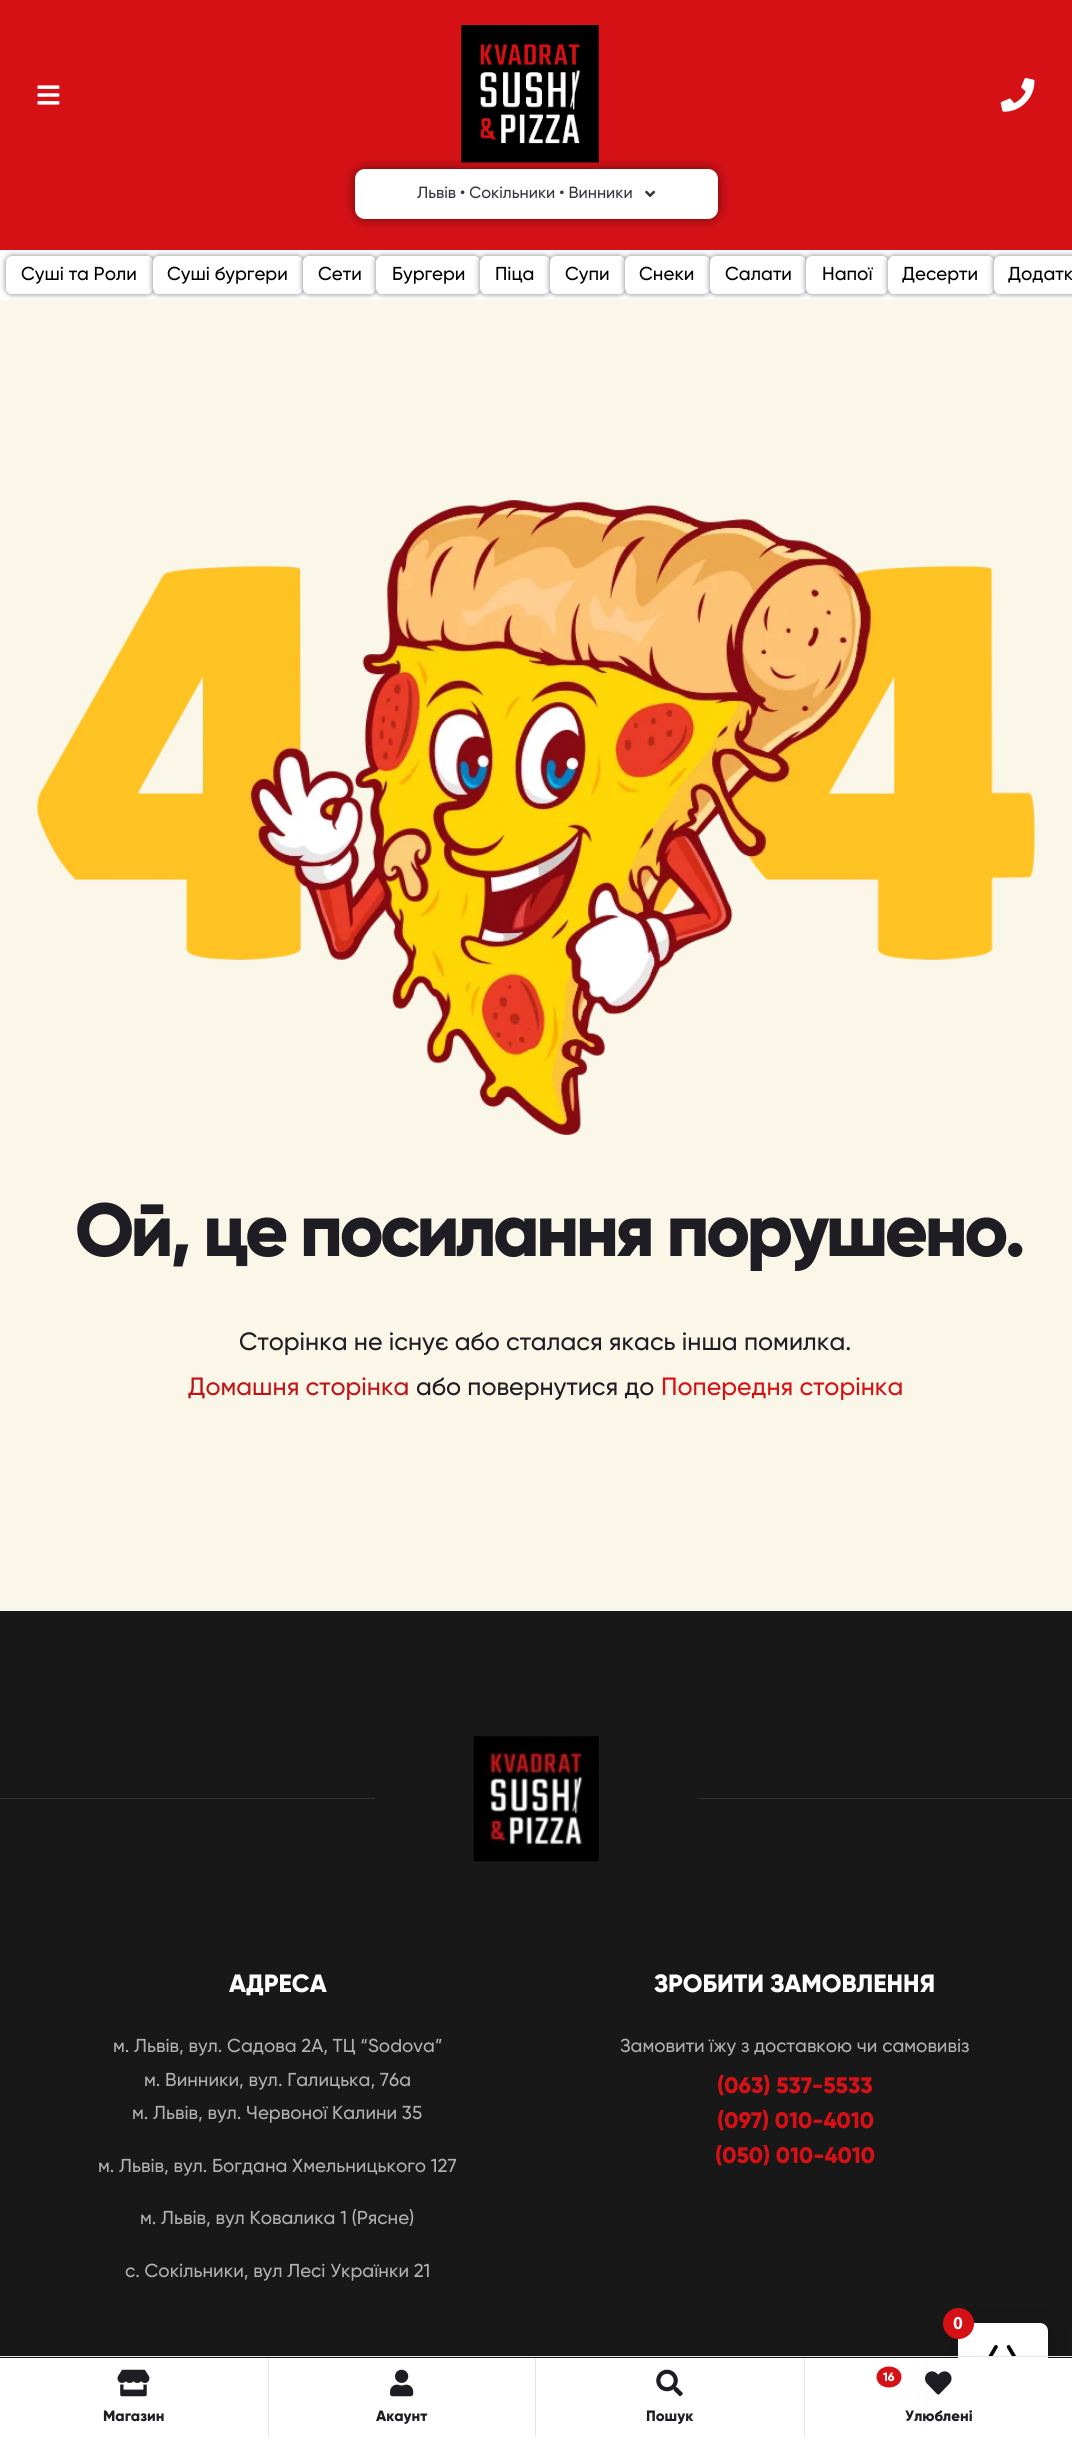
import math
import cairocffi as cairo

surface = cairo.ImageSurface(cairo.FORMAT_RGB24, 1072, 2437)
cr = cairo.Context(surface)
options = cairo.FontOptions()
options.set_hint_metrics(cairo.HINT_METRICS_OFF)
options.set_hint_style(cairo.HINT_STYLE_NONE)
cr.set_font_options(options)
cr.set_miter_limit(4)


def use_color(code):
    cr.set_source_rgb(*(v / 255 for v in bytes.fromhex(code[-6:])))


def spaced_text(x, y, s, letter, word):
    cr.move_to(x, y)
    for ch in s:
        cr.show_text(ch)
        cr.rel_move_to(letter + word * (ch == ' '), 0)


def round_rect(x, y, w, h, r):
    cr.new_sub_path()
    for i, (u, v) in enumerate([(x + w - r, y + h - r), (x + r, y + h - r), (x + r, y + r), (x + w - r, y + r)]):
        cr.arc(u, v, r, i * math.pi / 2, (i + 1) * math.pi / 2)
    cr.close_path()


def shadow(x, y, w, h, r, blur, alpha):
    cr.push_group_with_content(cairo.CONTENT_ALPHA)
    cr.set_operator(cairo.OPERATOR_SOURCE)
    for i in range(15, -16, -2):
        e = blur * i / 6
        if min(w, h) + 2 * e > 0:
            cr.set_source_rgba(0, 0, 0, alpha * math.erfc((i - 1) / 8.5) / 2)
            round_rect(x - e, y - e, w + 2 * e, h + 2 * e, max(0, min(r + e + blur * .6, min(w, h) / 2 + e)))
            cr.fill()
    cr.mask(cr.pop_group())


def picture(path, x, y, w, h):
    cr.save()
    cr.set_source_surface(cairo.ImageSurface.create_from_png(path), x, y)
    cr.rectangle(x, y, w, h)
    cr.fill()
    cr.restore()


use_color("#ffffff")
cr.paint()
use_color("#d51116")
cr.rectangle(0, 0, 1072, 250)
cr.fill()
picture("img1.png", 37, 85, 23, 20)
picture("img2.png", 461, 25, 138, 138)
picture("img3.png", 1000, 78, 35, 34)
use_color("#000000")
shadow(355, 169, 363, 50, 10, 6, 0.5)
use_color("#ffffff")
round_rect(355, 169, 363, 50, 10)
cr.fill()
cr.select_font_face("Gilroy Medium")
cr.set_font_size(16.25)
use_color("#33373d")
cr.move_to(417, 198)
cr.show_text("Львів • Сокільники • Винники")
picture("img4.png", 645, 190, 11, 8)
use_color("#fbf7e8")
cr.rectangle(0, 300, 1072, 1311)
cr.fill()
use_color("#000000")
shadow(6, 256, 147, 38, 6, 3, 0.5)
use_color("#ffffff")
round_rect(6, 256, 147, 38, 6)
cr.fill()
cr.set_font_size(18.75)
use_color("#000000")
cr.move_to(21, 280)
cr.show_text("Суші та Роли")
use_color("#000000")
shadow(153, 256, 150, 38, 6, 3, 0.5)
use_color("#ffffff")
round_rect(153, 256, 150, 38, 6)
cr.fill()
use_color("#000000")
cr.move_to(167, 280)
cr.show_text("Суші бургери")
use_color("#000000")
shadow(303, 256, 73, 38, 6, 3, 0.5)
use_color("#ffffff")
round_rect(303, 256, 73, 38, 6)
cr.fill()
use_color("#000000")
cr.move_to(318, 280)
cr.show_text("Сети")
use_color("#000000")
shadow(376, 256, 104, 38, 6, 3, 0.5)
use_color("#ffffff")
round_rect(376, 256, 104, 38, 6)
cr.fill()
use_color("#000000")
cr.move_to(392, 280)
cr.show_text("Бургери")
use_color("#000000")
shadow(480, 256, 70, 38, 6, 3, 0.5)
use_color("#ffffff")
round_rect(480, 256, 70, 38, 6)
cr.fill()
use_color("#000000")
cr.move_to(495, 280)
cr.show_text("Піца")
use_color("#000000")
shadow(550, 256, 75, 38, 6, 3, 0.5)
use_color("#ffffff")
round_rect(550, 256, 75, 38, 6)
cr.fill()
use_color("#000000")
cr.move_to(565, 280)
cr.show_text("Супи")
use_color("#000000")
shadow(625, 256, 85, 38, 6, 3, 0.5)
use_color("#ffffff")
round_rect(625, 256, 85, 38, 6)
cr.fill()
use_color("#000000")
cr.move_to(639, 280)
cr.show_text("Снеки")
use_color("#000000")
shadow(710, 256, 96, 38, 6, 3, 0.5)
use_color("#ffffff")
round_rect(710, 256, 96, 38, 6)
cr.fill()
use_color("#000000")
cr.move_to(725, 280)
cr.show_text("Салати")
use_color("#000000")
shadow(806, 256, 82, 38, 6, 3, 0.5)
use_color("#ffffff")
round_rect(806, 256, 82, 38, 6)
cr.fill()
use_color("#000000")
cr.move_to(822, 280)
cr.show_text("Напої")
use_color("#000000")
shadow(888, 256, 106, 38, 6, 3, 0.5)
use_color("#ffffff")
round_rect(888, 256, 106, 38, 6)
cr.fill()
use_color("#000000")
cr.move_to(902, 280)
cr.show_text("Десерти")
use_color("#000000")
shadow(994, 256, 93, 38, 6, 3, 0.5)
use_color("#ffffff")
cr.new_path()
cr.move_to(1000, 256)
cr.line_to(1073, 256)
cr.line_to(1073, 294)
cr.line_to(1000, 294)
cr.curve_to(996.5, 294, 994, 291.5, 994, 288)
cr.line_to(994, 262)
cr.curve_to(994, 258.5, 996.5, 256, 1000, 256)
cr.close_path()
cr.fill()
use_color("#000000")
cr.move_to(1008, 280)
cr.show_text("Додатк")
picture("img5.png", 37, 500, 998, 635)
cr.select_font_face("Gilroy ExtraBold")
cr.set_font_size(75)
use_color("#1e1d23")
spaced_text(75, 1256, "Ой, це посилання порушено.", -3.75, 0)
cr.select_font_face("Gilroy Medium")
cr.set_font_size(25)
cr.move_to(239, 1350)
cr.show_text("Сторінка не існує або сталася якась інша помилка.")
use_color("#bf1519")
cr.move_to(188, 1395)
cr.show_text("Домашня сторінка")
use_color("#1e1d23")
cr.move_to(416, 1395)
cr.show_text("або повернутися до")
use_color("#d51116")
cr.move_to(661, 1395)
cr.show_text("Попередня сторінка")
use_color("#181818")
cr.rectangle(0, 1611, 1072, 747)
cr.fill()
use_color("#303030")
cr.rectangle(0, 1798, 375, 1)
cr.fill()
picture("img6.png", 473, 1736, 126, 126)
cr.rectangle(698, 1798, 374, 1)
cr.fill()
cr.select_font_face("Gilroy ExtraBold")
use_color("#ffffff")
cr.move_to(229, 1992)
cr.show_text("АДРЕСА")
cr.select_font_face("Gilroy Medium")
cr.set_font_size(18.75)
use_color("#b0b0b0")
cr.move_to(113, 2052)
cr.show_text("м. Львів, вул. Садова 2А, ТЦ “Sodova”")
cr.move_to(144, 2086)
cr.show_text("м. Винники, вул. Галицька, 76а")
cr.move_to(132, 2119)
cr.show_text("м. Львів, вул. Червоної Калини 35")
cr.move_to(98, 2172)
cr.show_text("м. Львів, вул. Богдана Хмельницького 127")
cr.move_to(140, 2224)
cr.show_text("м. Львів, вул Ковалика 1 (Рясне)")
cr.move_to(125, 2277)
cr.show_text("с. Сокільники, вул Лесі Українки 21")
cr.select_font_face("Gilroy ExtraBold")
cr.set_font_size(25)
use_color("#ffffff")
cr.move_to(654, 1992)
cr.show_text("ЗРОБИТИ ЗАМОВЛЕННЯ")
cr.select_font_face("Gilroy Medium")
cr.set_font_size(18.75)
use_color("#b0b0b0")
cr.move_to(620, 2052)
cr.show_text("Замовити їжу з доставкою чи самовивіз")
cr.select_font_face("Gilroy ExtraBold")
cr.set_font_size(22.5)
use_color("#d51116")
cr.move_to(717, 2093)
cr.show_text("(063) 537-5533")
cr.move_to(717, 2128)
cr.show_text("(097) 010-4010")
cr.move_to(715, 2163)
cr.show_text("(050) 010-4010")
use_color("#000000")
shadow(958, 2328, 90, 90, 8, 19, 0.17)
use_color("#ffffff")
round_rect(958, 2323, 90, 90, 8)
cr.fill()
use_color("#e5e5e5")
cr.rectangle(0, 2356, 1072, 1)
cr.fill()
cr.rectangle(268, 2358, 1, 79)
cr.fill()
picture("img7.png", 117, 2369, 33, 28)
cr.set_font_size(15)
use_color("#1e1d23")
cr.move_to(103, 2421)
cr.show_text("Магазин")
use_color("#e5e5e5")
cr.rectangle(535, 2358, 1, 79)
cr.fill()
picture("img8.png", 390, 2369, 24, 28)
use_color("#1e1d23")
cr.move_to(376, 2421)
cr.show_text("Акаунт")
use_color("#e5e5e5")
cr.rectangle(804, 2358, 1, 79)
cr.fill()
picture("img9.png", 656, 2369, 27, 28)
use_color("#1e1d23")
cr.move_to(646, 2421)
cr.show_text("Пошук")
use_color("#ffffff")
cr.rectangle(928, 2358, 144, 79)
cr.fill()
use_color("#d51116")
cr.new_path()
cr.move_to(889, 2366.5)
cr.curve_to(896, 2366.5, 901.5, 2371, 901.5, 2377)
cr.curve_to(901.5, 2383, 896, 2387.5, 889, 2387.5)
cr.curve_to(882, 2387.5, 876.5, 2383, 876.5, 2377)
cr.curve_to(876.5, 2371, 882, 2366.5, 889, 2366.5)
cr.close_path()
cr.fill()
cr.set_font_size(12)
use_color("#ffffff")
cr.move_to(883, 2381)
cr.show_text("16")
picture("img10.png", 925, 2371, 27, 24)
cr.set_font_size(15)
use_color("#1e1d23")
cr.move_to(905, 2421)
cr.show_text("Улюблені")
use_color("#d51116")
cr.new_path()
cr.arc(958.5, 2323.5, 15.5, 0, 2 * math.pi)
cr.fill()
cr.select_font_face("Source Sans Pro", cairo.FONT_SLANT_NORMAL, cairo.FONT_WEIGHT_BOLD)
cr.set_font_size(18.75)
use_color("#ffffff")
cr.move_to(953, 2329)
cr.show_text("0")
picture("img11.png", 988, 2345, 28, 11)
surface.write_to_png("result.png")
